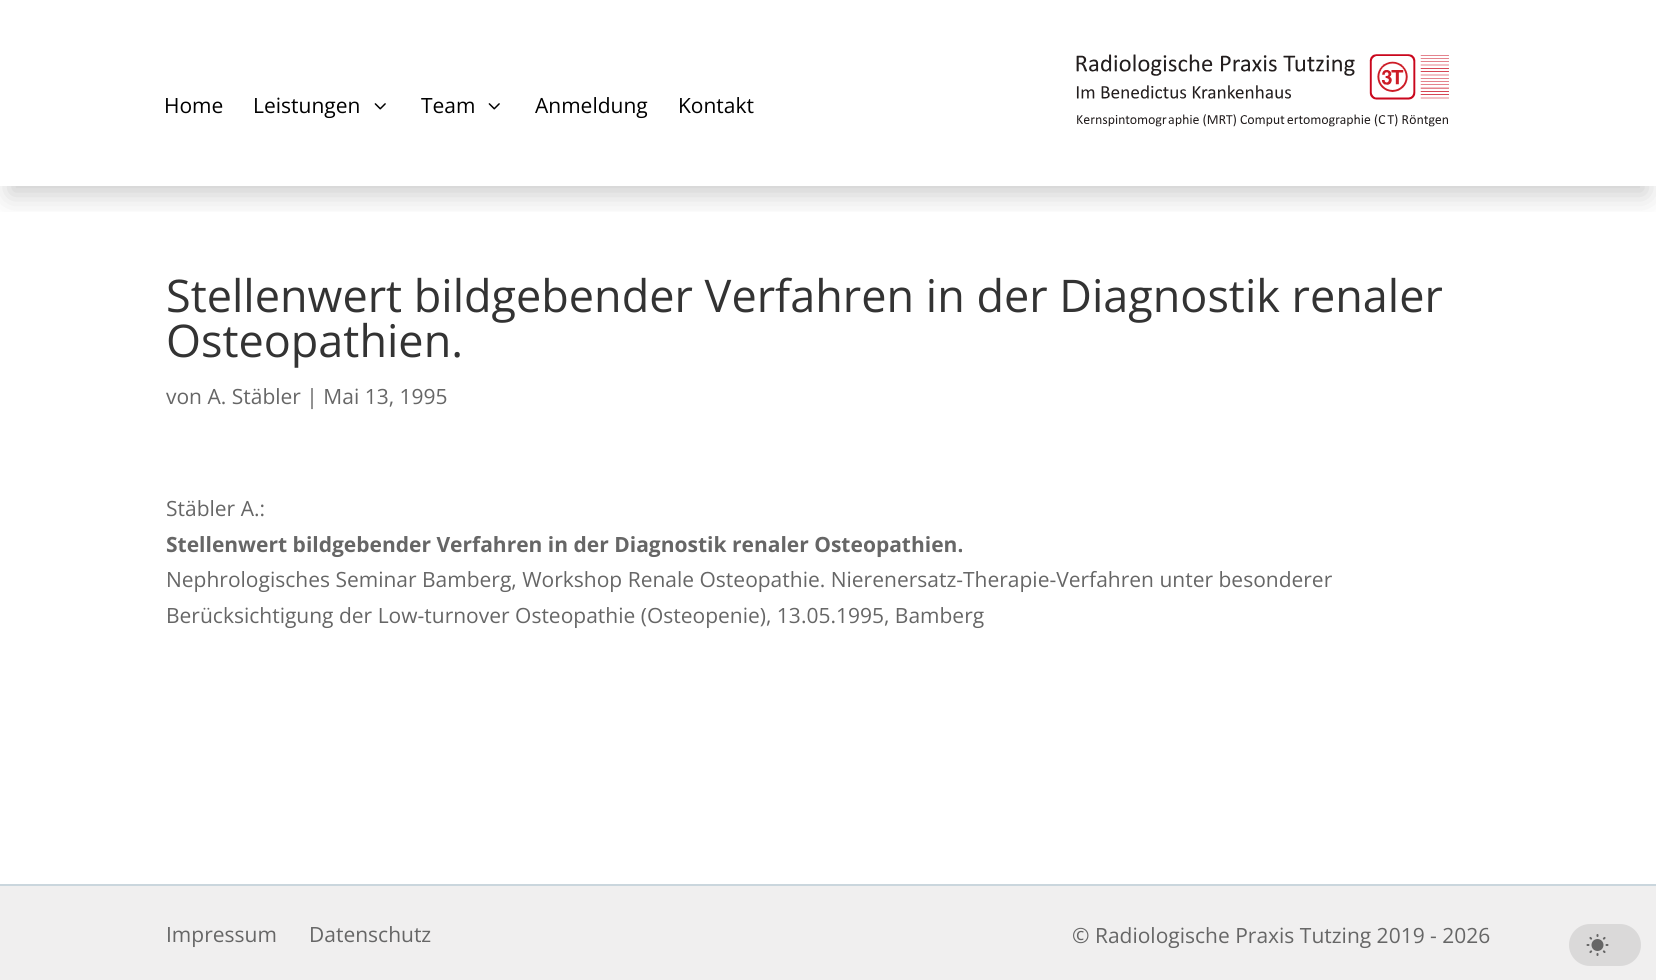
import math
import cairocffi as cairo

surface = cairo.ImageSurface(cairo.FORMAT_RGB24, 1656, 980)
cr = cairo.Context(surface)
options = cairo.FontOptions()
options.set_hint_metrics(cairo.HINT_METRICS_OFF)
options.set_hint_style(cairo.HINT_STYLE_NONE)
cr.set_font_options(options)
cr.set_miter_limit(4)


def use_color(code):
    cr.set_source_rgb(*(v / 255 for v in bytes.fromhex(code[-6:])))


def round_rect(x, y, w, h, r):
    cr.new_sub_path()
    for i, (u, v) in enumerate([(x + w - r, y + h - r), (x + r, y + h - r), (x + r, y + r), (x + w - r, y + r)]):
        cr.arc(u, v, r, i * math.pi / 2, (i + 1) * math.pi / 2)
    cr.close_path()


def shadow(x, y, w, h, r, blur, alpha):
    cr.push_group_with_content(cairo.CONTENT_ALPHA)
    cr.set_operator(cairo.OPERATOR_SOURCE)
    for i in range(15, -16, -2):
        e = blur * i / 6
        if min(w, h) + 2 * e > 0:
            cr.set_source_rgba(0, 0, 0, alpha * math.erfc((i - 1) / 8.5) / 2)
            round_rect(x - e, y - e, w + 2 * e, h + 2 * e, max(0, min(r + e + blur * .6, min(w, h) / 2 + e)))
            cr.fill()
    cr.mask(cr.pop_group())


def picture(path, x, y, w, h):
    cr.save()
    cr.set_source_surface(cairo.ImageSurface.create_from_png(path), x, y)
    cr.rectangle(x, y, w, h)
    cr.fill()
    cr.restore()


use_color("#ffffff")
cr.paint()
cr.save()
cr.rectangle(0, 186, 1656, 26)
cr.clip()
use_color("#000000")
shadow(9, 27, 1638, 168, 0, 13.5, 0.2)
cr.restore()
cr.select_font_face("Open Sans")
cr.set_font_size(21)
use_color("#000000")
cr.move_to(164, 113)
cr.show_text("Home")
cr.move_to(253, 113)
cr.show_text("Leistungen")
picture("img1.png", 374, 103, 12, 7)
cr.move_to(421, 113)
cr.show_text("Team")
picture("img1.png", 488, 103, 12, 7)
cr.move_to(535, 113)
cr.show_text("Anmeldung")
cr.move_to(678, 113)
cr.show_text("Kontakt")
picture("img2.png", 1076, 54, 373, 73)
cr.set_font_size(45)
use_color("#333333")
cr.move_to(166, 312)
cr.show_text("Stellenwert bildgebender Verfahren in der Diagnostik renaler")
cr.move_to(166, 357)
cr.show_text("Osteopathien.")
cr.set_font_size(21)
use_color("#666666")
cr.move_to(166, 404)
cr.show_text("von A. Stäbler | Mai 13, 1995")
cr.move_to(166, 516)
cr.show_text("Stäbler A.:")
cr.select_font_face("Open Sans", cairo.FONT_SLANT_NORMAL, cairo.FONT_WEIGHT_BOLD)
cr.move_to(166, 552)
cr.show_text("Stellenwert bildgebender Verfahren in der Diagnostik renaler Osteopathien.")
cr.select_font_face("Open Sans")
cr.move_to(166, 587)
cr.show_text("Nephrologisches Seminar Bamberg, Workshop Renale Osteopathie. Nierenersatz-Therapie-Verfahren unter besonderer")
cr.move_to(166, 623)
cr.show_text("Berücksichtigung der Low-turnover Osteopathie (Osteopenie), 13.05.1995, Bamberg")
use_color("#f0efef")
cr.rectangle(0, 886, 1656, 94)
cr.fill()
use_color("#cad6dd")
cr.rectangle(0, 884, 1656, 2)
cr.fill()
use_color("#666666")
cr.move_to(166, 942)
cr.show_text("Impressum")
cr.move_to(309, 942)
cr.show_text("Datenschutz")
cr.move_to(1072, 943)
cr.show_text("© Radiologische Praxis Tutzing 2019 - 2026")
use_color("#dad9d9")
round_rect(1569, 924, 72, 42, 21)
cr.fill()
picture("img3.png", 1586, 934, 23, 22)
surface.write_to_png("result.png")
